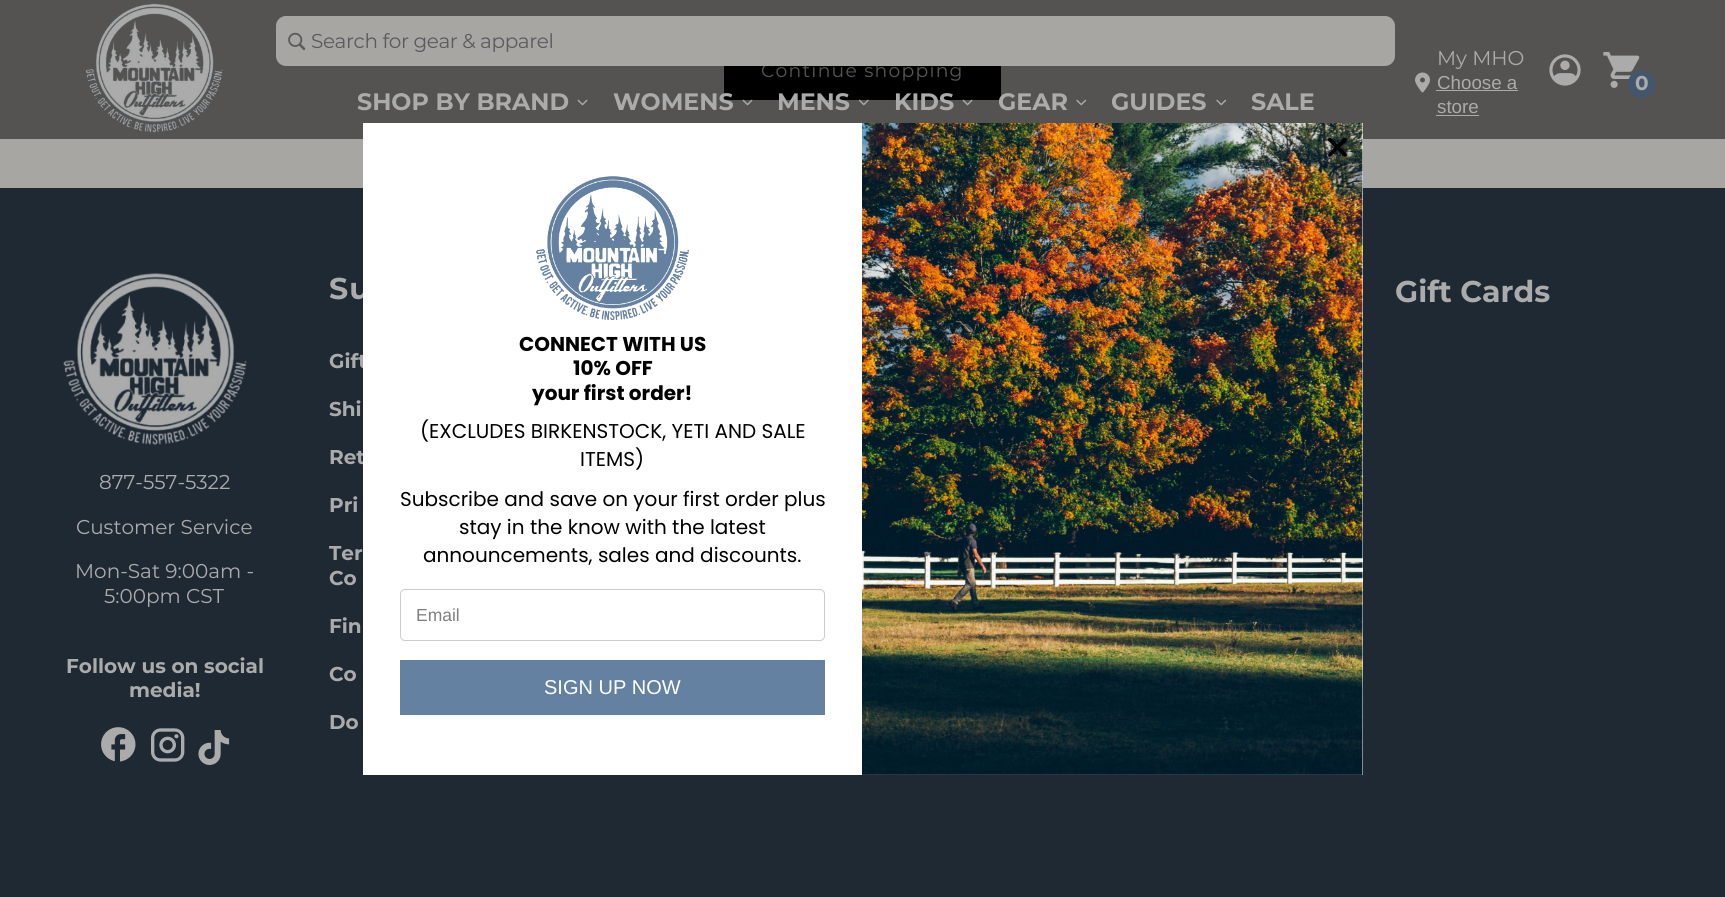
import math
import cairocffi as cairo

surface = cairo.ImageSurface(cairo.FORMAT_RGB24, 1725, 897)
cr = cairo.Context(surface)
options = cairo.FontOptions()
options.set_hint_metrics(cairo.HINT_METRICS_OFF)
options.set_hint_style(cairo.HINT_STYLE_NONE)
cr.set_font_options(options)
cr.set_miter_limit(4)


def use_color(code):
    cr.set_source_rgb(*(v / 255 for v in bytes.fromhex(code[-6:])))


def spaced_text(x, y, s, letter, word):
    cr.move_to(x, y)
    for ch in s:
        cr.show_text(ch)
        cr.rel_move_to(letter + word * (ch == ' '), 0)


def round_rect(x, y, w, h, r):
    cr.new_sub_path()
    for i, (u, v) in enumerate([(x + w - r, y + h - r), (x + r, y + h - r), (x + r, y + r), (x + w - r, y + r)]):
        cr.arc(u, v, r, i * math.pi / 2, (i + 1) * math.pi / 2)
    cr.close_path()


def picture(path, x, y, w, h):
    cr.save()
    cr.set_source_surface(cairo.ImageSurface.create_from_png(path), x, y)
    cr.rectangle(x, y, w, h)
    cr.fill()
    cr.restore()


use_color("#a8a6a3")
cr.paint()
use_color("#545352")
cr.rectangle(0, 0, 1725, 139)
cr.fill()
picture("img1.png", 85, 3, 138, 130)
use_color("#000000")
cr.rectangle(724, 66, 277, 34)
cr.fill()
cr.select_font_face("Montserrat")
cr.set_font_size(18.75)
use_color("#565656")
spaced_text(761, 77, "Continue shopping", 1.25, 0)
use_color("#a8a6a3")
round_rect(276, 16, 1119, 50, 10)
cr.fill()
picture("img2.png", 288, 32, 18, 18)
cr.set_font_size(20)
use_color("#5b5a5c")
spaced_text(311, 48, "Search for gear & apparel", -0.4, 0)
cr.select_font_face("Montserrat", cairo.FONT_SLANT_NORMAL, cairo.FONT_WEIGHT_BOLD)
cr.set_font_size(23.75)
use_color("#ababab")
cr.move_to(357, 110)
cr.show_text("SHOP BY BRAND")
picture("img3.png", 577, 99, 11, 7)
cr.move_to(613, 110)
cr.show_text("WOMENS")
picture("img4.png", 742, 99, 11, 7)
cr.move_to(777, 110)
cr.show_text("MENS")
picture("img5.png", 858, 99, 11, 7)
cr.move_to(894, 110)
cr.show_text("KIDS")
picture("img4.png", 962, 99, 11, 7)
cr.move_to(998, 110)
cr.show_text("GEAR")
picture("img6.png", 1076, 99, 11, 7)
cr.move_to(1111, 110)
cr.show_text("GUIDES")
picture("img6.png", 1216, 99, 11, 7)
cr.move_to(1251, 110)
cr.show_text("SALE")
picture("img7.png", 1415, 72, 15, 21)
cr.select_font_face("Montserrat")
cr.set_font_size(20)
cr.move_to(1437, 65)
cr.show_text("My MHO")
cr.select_font_face("Liberation Sans")
cr.set_font_size(18.75)
cr.move_to(1437, 89)
cr.show_text("Choose a")
cr.rectangle(1436, 90, 82, 1)
cr.fill()
cr.move_to(1437, 113)
cr.show_text("store")
cr.rectangle(1436, 115, 43, 1)
cr.fill()
picture("img8.png", 1549, 54, 32, 32)
picture("img9.png", 1603, 52, 37, 36)
use_color("#43566d")
round_rect(1628, 70, 27, 28, 13.5)
cr.fill()
cr.select_font_face("Montserrat", cairo.FONT_SLANT_NORMAL, cairo.FONT_WEIGHT_BOLD)
cr.set_font_size(20)
use_color("#ababab")
cr.move_to(1635, 90)
cr.show_text("0")
use_color("#1f2934")
cr.rectangle(0, 188, 1725, 709)
cr.fill()
cr.set_font_size(30)
use_color("#ababab")
spaced_text(329, 299, "Su", 1, 0)
cr.set_font_size(20)
cr.move_to(329, 368)
cr.show_text("Gift")
cr.move_to(329, 416)
cr.show_text("Shi")
cr.move_to(329, 464)
cr.show_text("Ret")
cr.move_to(329, 512)
cr.show_text("Pri")
cr.move_to(329, 560)
cr.show_text("Ter")
cr.move_to(329, 585)
cr.show_text("Co")
cr.move_to(329, 633)
cr.show_text("Fin")
cr.move_to(329, 681)
cr.show_text("Co")
cr.move_to(329, 729)
cr.show_text("Do")
cr.set_font_size(30)
cr.move_to(1395, 302)
cr.show_text("Gift Cards")
picture("img10.png", 63, 272, 184, 173)
cr.select_font_face("Montserrat")
cr.set_font_size(20)
cr.move_to(99, 489)
cr.show_text("877-557-5322")
cr.move_to(76, 534)
cr.show_text("Customer Service")
cr.move_to(75, 578)
cr.show_text("Mon-Sat 9:00am -")
cr.move_to(104, 603)
cr.show_text("5:00pm CST")
cr.select_font_face("Montserrat", cairo.FONT_SLANT_NORMAL, cairo.FONT_WEIGHT_BOLD)
cr.move_to(66, 673)
cr.show_text("Follow us on social")
cr.move_to(129, 697)
cr.show_text("media!")
picture("img11.png", 101, 727, 35, 35)
picture("img12.png", 151, 728, 34, 34)
picture("img13.png", 198, 730, 32, 35)
use_color("#ffffff")
cr.rectangle(363, 123, 1000, 652)
cr.fill()
picture("img15.png", 862, 123, 501, 652)
use_color("#000000")
cr.new_path()
cr.move_to(1331.5, 138.5)
cr.line_to(1344, 151)
cr.curve_to(1345, 152, 1348, 154.5, 1346.5, 156)
cr.curve_to(1344.5, 158, 1342, 154.5, 1341, 153.5)
cr.line_to(1328, 140.5)
cr.curve_to(1327.5, 138.5, 1330, 137, 1331.5, 138.5)
cr.close_path()
cr.fill()
cr.new_path()
cr.move_to(1328.5, 153.5)
cr.line_to(1341, 141)
cr.curve_to(1342, 140, 1344.5, 136.5, 1346.5, 138.5)
cr.curve_to(1348, 140.5, 1345, 143, 1344, 143.5)
cr.line_to(1330.5, 156.5)
cr.curve_to(1329, 157.5, 1327.5, 155, 1328.5, 153.5)
cr.close_path()
cr.fill()
picture("img14.png", 536, 176, 153, 144)
cr.select_font_face("Poppins", cairo.FONT_SLANT_NORMAL, cairo.FONT_WEIGHT_BOLD)
cr.move_to(519, 351)
cr.show_text("CONNECT WITH US")
cr.move_to(573, 375)
cr.show_text("10% OFF")
cr.move_to(532, 400)
cr.show_text("your first order!")
cr.select_font_face("Poppins")
cr.move_to(420, 438)
cr.show_text("(EXCLUDES BIRKENSTOCK, YETI AND SALE")
cr.move_to(580, 466)
cr.show_text("ITEMS)")
cr.move_to(400, 506)
cr.show_text("Subscribe and save on your first order plus")
cr.move_to(459, 534)
cr.show_text("stay in the know with the latest")
cr.move_to(423, 562)
cr.show_text("announcements, sales and discounts.")
round_rect(400.5, 589.5, 424, 51, 4.5)
use_color("#cccccc")
cr.set_line_width(1)
cr.stroke()
cr.select_font_face("Liberation Sans")
cr.set_font_size(17.5)
use_color("#808080")
cr.move_to(416, 621)
cr.show_text("Email")
use_color("#6481a1")
cr.rectangle(400, 660, 425, 55)
cr.fill()
cr.set_font_size(20)
use_color("#ffffff")
cr.move_to(544, 694)
cr.show_text("SIGN UP NOW")
surface.write_to_png("result.png")
